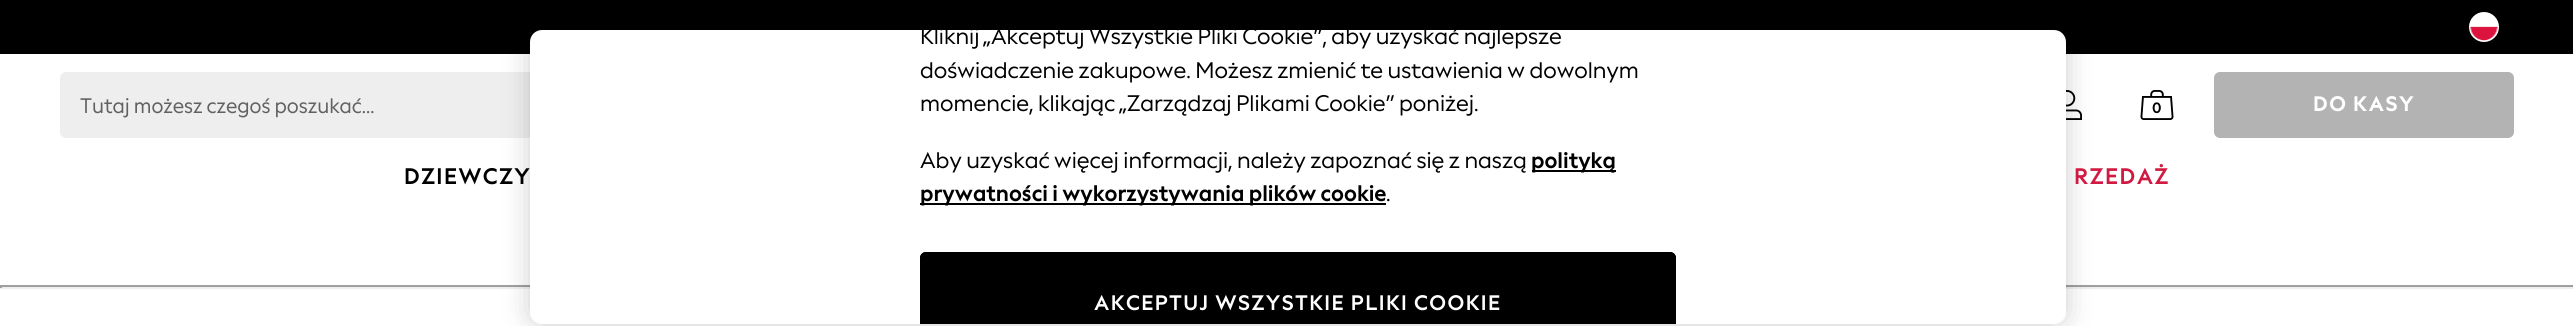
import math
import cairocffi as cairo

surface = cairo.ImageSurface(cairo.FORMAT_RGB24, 2573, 326)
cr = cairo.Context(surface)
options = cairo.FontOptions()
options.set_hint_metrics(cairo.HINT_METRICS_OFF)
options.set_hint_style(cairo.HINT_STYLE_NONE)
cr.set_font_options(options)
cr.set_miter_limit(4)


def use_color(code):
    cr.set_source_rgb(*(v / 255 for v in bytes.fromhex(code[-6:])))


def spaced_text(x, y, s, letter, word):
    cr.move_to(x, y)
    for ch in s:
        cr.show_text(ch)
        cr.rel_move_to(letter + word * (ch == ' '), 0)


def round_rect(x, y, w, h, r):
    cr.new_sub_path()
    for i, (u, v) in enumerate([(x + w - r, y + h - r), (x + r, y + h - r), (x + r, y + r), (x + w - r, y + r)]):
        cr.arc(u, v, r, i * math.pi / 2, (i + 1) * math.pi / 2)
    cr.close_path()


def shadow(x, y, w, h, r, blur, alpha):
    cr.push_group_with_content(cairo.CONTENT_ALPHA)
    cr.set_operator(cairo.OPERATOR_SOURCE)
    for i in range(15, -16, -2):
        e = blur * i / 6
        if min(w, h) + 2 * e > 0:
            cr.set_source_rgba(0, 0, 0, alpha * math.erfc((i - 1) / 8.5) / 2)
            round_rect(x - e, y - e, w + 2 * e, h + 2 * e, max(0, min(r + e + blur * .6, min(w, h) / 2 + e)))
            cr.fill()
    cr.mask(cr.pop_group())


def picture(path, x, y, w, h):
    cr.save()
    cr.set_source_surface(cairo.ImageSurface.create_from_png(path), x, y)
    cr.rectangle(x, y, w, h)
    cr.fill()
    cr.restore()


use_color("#ffffff")
cr.paint()
use_color("#000000")
cr.rectangle(0, 0, 2573, 54)
cr.fill()
use_color("#eeeeee")
round_rect(61, 73, 589, 64, 5)
cr.fill_preserve()
cr.stroke()
picture("img2.png", 2066, 90, 16, 30)
use_color("#9f9f9f")
cr.rectangle(0, 285, 2573, 2)
cr.fill()
use_color("#eeeeee")
cr.rectangle(0, 287, 2573, 2)
cr.fill()
use_color("#000000")
shadow(530, 30, 1536, 294, 12, 13.5, 0.2)
cr.select_font_face("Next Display", cairo.FONT_SLANT_NORMAL, cairo.FONT_WEIGHT_BOLD)
cr.set_font_size(22.5)
use_color("#000000")
spaced_text(404, 184, "DZIEWCZY", 1.5, 0)
use_color("#ffffff")
round_rect(530, 30, 1536, 294, 12)
cr.fill()
cr.save()
round_rect(530, 30, 1536, 294, 12)
cr.clip()
cr.select_font_face("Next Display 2")
use_color("#000000")
cr.move_to(920, 44)
cr.show_text("Kliknij")
cr.restore()
cr.select_font_face("Poppins")
use_color("#000000")
cr.move_to(983, 44)
cr.show_text("„")
cr.save()
round_rect(530, 30, 1536, 294, 12)
cr.clip()
cr.select_font_face("Next Display 2")
cr.move_to(991, 44)
cr.show_text("Akceptuj Wszystkie Pliki Cookie”, aby uzyskać najlepsze")
cr.restore()
cr.select_font_face("Next Display 2")
cr.move_to(920, 78)
cr.show_text("doświadczenie zakupowe. Możesz zmienić te ustawienia w dowolnym")
cr.move_to(920, 111)
cr.show_text("momencie, klikając")
cr.select_font_face("Poppins")
cr.move_to(1119, 111)
cr.show_text("„")
cr.select_font_face("Next Display 2")
cr.move_to(1127, 111)
cr.show_text("Zarządzaj Plikami Cookie” poniżej.")
cr.move_to(920, 168)
cr.show_text("Aby uzyskać więcej informacji, należy zapoznać się z naszą")
cr.rectangle(1532, 170, 84, 2)
cr.fill()
cr.select_font_face("Next Display 2", cairo.FONT_SLANT_NORMAL, cairo.FONT_WEIGHT_BOLD)
cr.move_to(1531, 168)
cr.show_text("polityką")
cr.rectangle(920, 203, 466, 2)
cr.fill()
cr.move_to(920, 201)
cr.show_text("prywatności i wykorzystywania plików cookie")
cr.select_font_face("Next Display 2")
cr.move_to(1386, 201)
cr.show_text(".")
cr.new_path()
cr.move_to(926, 252)
cr.line_to(1670, 252)
cr.curve_to(1673.5, 252, 1676, 254.5, 1676, 258)
cr.line_to(1676, 324)
cr.line_to(920, 324)
cr.line_to(920, 258)
cr.curve_to(920, 254.5, 922.5, 252, 926, 252)
cr.close_path()
cr.fill()
cr.new_path()
cr.move_to(926, 252)
cr.curve_to(923, 252, 920, 255, 920, 258)
cr.line_to(920, 324)
cr.line_to(922, 324)
cr.line_to(922, 258)
cr.curve_to(922, 256, 924, 254, 926, 254)
cr.line_to(1670, 254)
cr.curve_to(1672, 254, 1674, 256, 1674, 258)
cr.line_to(1674, 324)
cr.line_to(1676, 324)
cr.line_to(1676, 258)
cr.curve_to(1676, 255, 1673, 252, 1670, 252)
cr.close_path()
cr.fill()
cr.select_font_face("Next Display", cairo.FONT_SLANT_NORMAL, cairo.FONT_WEIGHT_BOLD)
cr.set_font_size(21)
use_color("#ffffff")
spaced_text(1094, 310, "AKCEPTUJ WSZYSTKIE PLIKI COOKIE", 1.5, 0)
cr.new_path()
cr.arc(2484, 27, 14, 0, 2 * math.pi)
cr.fill_preserve()
cr.stroke()
picture("img1.png", 2470, 26, 28, 15)
cr.select_font_face("Next Display")
use_color("#616161")
cr.move_to(80, 113)
cr.show_text("Tutaj możesz czegoś poszukać...")
picture("img3.png", 2140, 90, 34, 30)
cr.select_font_face("Next Display 2", cairo.FONT_SLANT_NORMAL, cairo.FONT_WEIGHT_BOLD)
cr.set_font_size(15)
use_color("#000000")
cr.move_to(2152, 113)
cr.show_text("0")
use_color("#b3b3b3")
round_rect(2214, 72, 300, 66, 6)
cr.fill()
cr.select_font_face("Next Display ExtraBold")
cr.set_font_size(21)
use_color("#ffffff")
spaced_text(2313, 111, "DO KASY", 1.5, 0)
cr.select_font_face("Next Display", cairo.FONT_SLANT_NORMAL, cairo.FONT_WEIGHT_BOLD)
cr.set_font_size(22.5)
use_color("#d01a42")
spaced_text(2074, 184, "RZEDAŻ", 1.5, 0)
use_color("#9f9f9f")
cr.rectangle(0, 285, 2, 3)
cr.fill()
surface.write_to_png("result.png")
